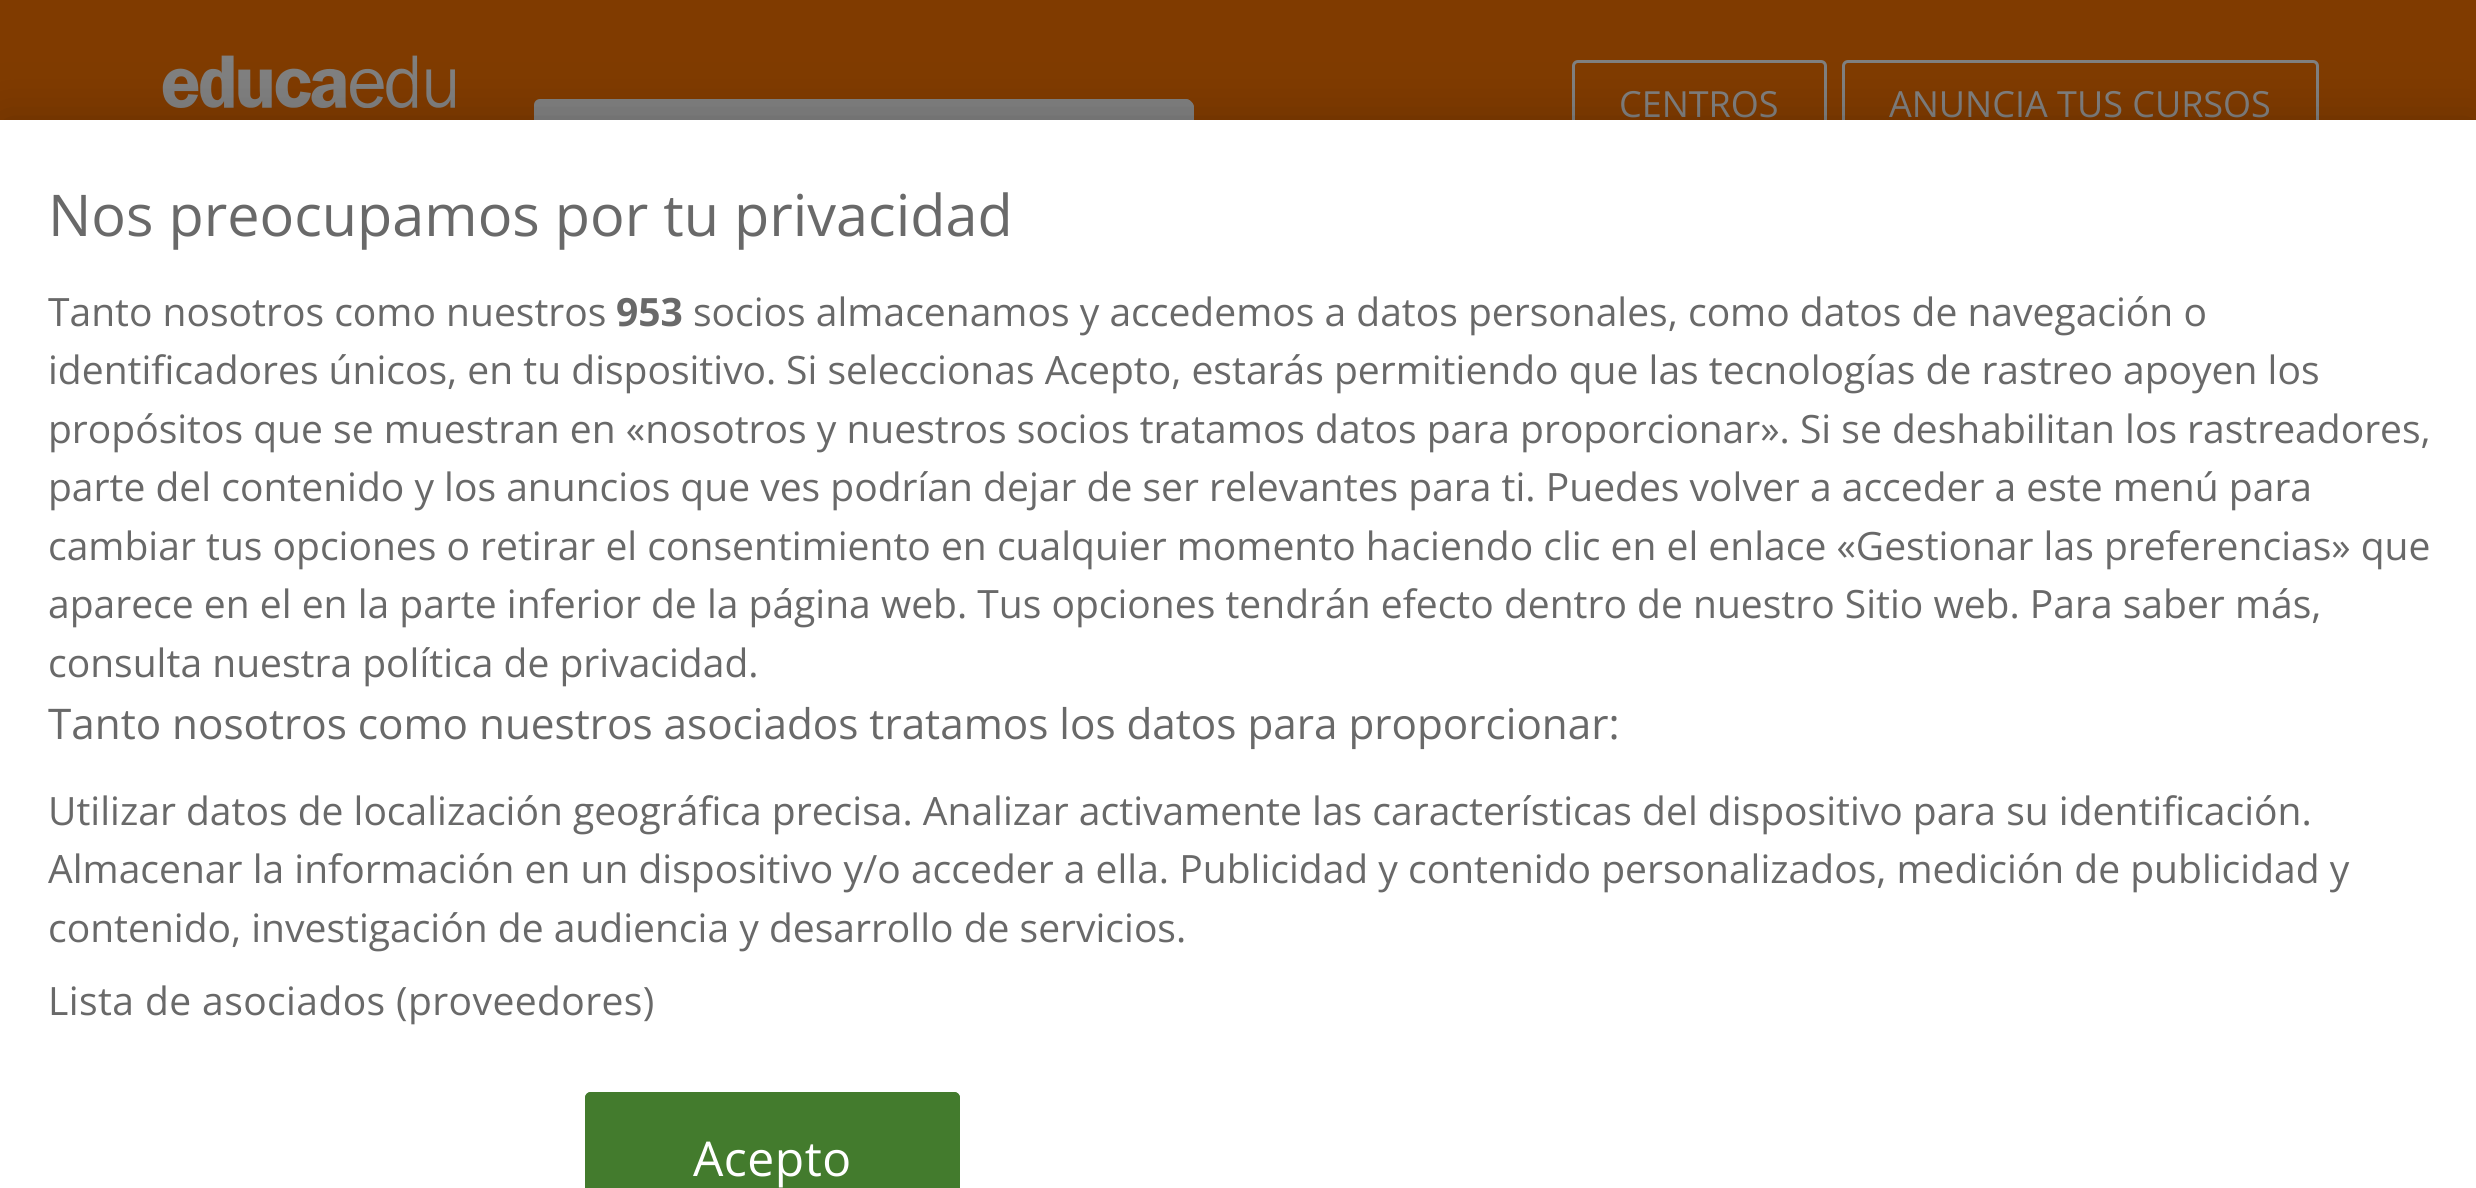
import math
import cairocffi as cairo

surface = cairo.ImageSurface(cairo.FORMAT_RGB24, 2476, 1188)
cr = cairo.Context(surface)
options = cairo.FontOptions()
options.set_hint_metrics(cairo.HINT_METRICS_OFF)
options.set_hint_style(cairo.HINT_STYLE_NONE)
cr.set_font_options(options)
cr.set_miter_limit(4)


def use_color(code):
    cr.set_source_rgb(*(v / 255 for v in bytes.fromhex(code[-6:])))


def spaced_text(x, y, s, letter, word):
    cr.move_to(x, y)
    for ch in s:
        cr.show_text(ch)
        cr.rel_move_to(letter + word * (ch == ' '), 0)


def round_rect(x, y, w, h, r):
    cr.new_sub_path()
    for i, (u, v) in enumerate([(x + w - r, y + h - r), (x + r, y + h - r), (x + r, y + r), (x + w - r, y + r)]):
        cr.arc(u, v, r, i * math.pi / 2, (i + 1) * math.pi / 2)
    cr.close_path()


def shadow(x, y, w, h, r, blur, alpha):
    cr.push_group_with_content(cairo.CONTENT_ALPHA)
    cr.set_operator(cairo.OPERATOR_SOURCE)
    for i in range(15, -16, -2):
        e = blur * i / 6
        if min(w, h) + 2 * e > 0:
            cr.set_source_rgba(0, 0, 0, alpha * math.erfc((i - 1) / 8.5) / 2)
            round_rect(x - e, y - e, w + 2 * e, h + 2 * e, max(0, min(r + e + blur * .6, min(w, h) / 2 + e)))
            cr.fill()
    cr.mask(cr.pop_group())


def picture(path, x, y, w, h):
    cr.save()
    cr.set_source_surface(cairo.ImageSurface.create_from_png(path), x, y)
    cr.rectangle(x, y, w, h)
    cr.fill()
    cr.restore()


use_color("#803b00")
cr.paint()
picture("img1.png", 162, 55, 293, 53)
use_color("#808080")
cr.new_path()
cr.move_to(540, 100.5)
cr.line_to(1057.5, 100.5)
cr.line_to(1057.5, 199.5)
cr.line_to(540, 199.5)
cr.curve_to(537.5, 199.5, 535.5, 197.5, 535.5, 195)
cr.line_to(535.5, 105)
cr.curve_to(535.5, 102.5, 537.5, 100.5, 540, 100.5)
cr.close_path()
cr.fill_preserve()
cr.set_line_width(3)
cr.stroke()
cr.new_path()
cr.move_to(1056, 99)
cr.line_to(1185, 99)
cr.curve_to(1190, 99, 1194, 103, 1194, 108)
cr.line_to(1194, 192)
cr.curve_to(1194, 197, 1190, 201, 1185, 201)
cr.line_to(1056, 201)
cr.close_path()
cr.fill()
cr.new_path()
cr.move_to(1056, 99)
cr.line_to(1059, 102)
cr.line_to(1186, 102)
cr.line_to(1189, 104)
cr.line_to(1191, 102)
cr.curve_to(1190, 100, 1188, 99, 1185, 99)
cr.close_path()
cr.fill()
cr.new_path()
cr.move_to(1194, 192)
cr.line_to(1194, 108)
cr.curve_to(1194, 106, 1193, 103, 1191, 102)
cr.line_to(1189, 104)
cr.line_to(1191, 107)
cr.line_to(1191, 193)
cr.line_to(1189, 196)
cr.line_to(1191, 198)
cr.curve_to(1193, 197, 1194, 194, 1194, 192)
cr.close_path()
cr.fill()
round_rect(1573.5, 61.5, 252, 87, 4.5)
cr.stroke()
cr.select_font_face("Open Sans")
cr.set_font_size(36)
cr.move_to(1619, 117)
cr.show_text("CENTROS")
round_rect(1843.5, 61.5, 474, 87, 4.5)
cr.stroke()
cr.move_to(1889, 117)
cr.show_text("ANUNCIA TUS CURSOS")
use_color("#000000")
shadow(0, 120, 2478, 1068, 0, 27, 0.2)
use_color("#ffffff")
cr.rectangle(0, 120, 2476, 1068)
cr.fill()
cr.set_font_size(57.6)
use_color("#696969")
cr.move_to(48, 236)
cr.show_text("Nos preocupamos por tu privacidad")
cr.set_font_size(39.02)
cr.move_to(48, 326)
cr.show_text("Tanto nosotros como nuestros")
cr.select_font_face("Open Sans", cairo.FONT_SLANT_NORMAL, cairo.FONT_WEIGHT_BOLD)
cr.move_to(616, 326)
cr.show_text("953")
cr.select_font_face("Open Sans")
cr.move_to(693, 326)
cr.show_text("socios almacenamos y accedemos a datos personales, como datos de navegación o")
cr.move_to(48, 384)
cr.show_text("identificadores únicos, en tu dispositivo.")
cr.move_to(786, 384)
cr.show_text("Si seleccionas Acepto, estarás permitiendo que las tecnologías de rastreo apoyen los")
cr.move_to(48, 443)
cr.show_text("propósitos que se muestran en «nosotros y nuestros socios tratamos datos para proporcionar». Si se deshabilitan los rastreadores,")
cr.move_to(48, 501)
cr.show_text("parte del contenido y los anuncios que ves podrían dejar de ser relevantes para ti. Puedes volver a acceder a este menú para")
cr.move_to(48, 560)
cr.show_text("cambiar tus opciones o retirar el consentimiento en cualquier momento haciendo clic en el enlace «Gestionar las preferencias» que")
cr.move_to(48, 618)
cr.show_text("aparece en el en la parte inferior de la página web. Tus opciones tendrán efecto dentro de nuestro Sitio web. Para saber más,")
cr.move_to(48, 677)
cr.show_text("consulta nuestra política de privacidad.")
cr.set_font_size(42.25)
cr.move_to(48, 739)
cr.show_text("Tanto nosotros como nuestros asociados tratamos los datos para proporcionar:")
cr.set_font_size(39.02)
cr.move_to(48, 825)
cr.show_text("Utilizar datos de localización geográfica precisa. Analizar activamente las características del dispositivo para su identificación.")
cr.move_to(48, 883)
cr.show_text("Almacenar la información en un dispositivo y/o acceder a ella. Publicidad y contenido personalizados, medición de publicidad y")
cr.move_to(48, 942)
cr.show_text("contenido, investigación de audiencia y desarrollo de servicios.")
spaced_text(48, 1015, "Lista de asociados (proveedores)", 0.4, 0)
use_color("#437b2d")
cr.new_path()
cr.move_to(591, 1092)
cr.line_to(954, 1092)
cr.curve_to(957.5, 1092, 960, 1094.5, 960, 1098)
cr.line_to(960, 1188)
cr.line_to(585, 1188)
cr.line_to(585, 1098)
cr.curve_to(585, 1094.5, 587.5, 1092, 591, 1092)
cr.close_path()
cr.fill()
round_rect(586.5, 1093.5, 372, 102, 4.5)
cr.stroke()
cr.set_font_size(48)
use_color("#ffffff")
spaced_text(693, 1176, "Acepto", 0.5, 0)
surface.write_to_png("result.png")
